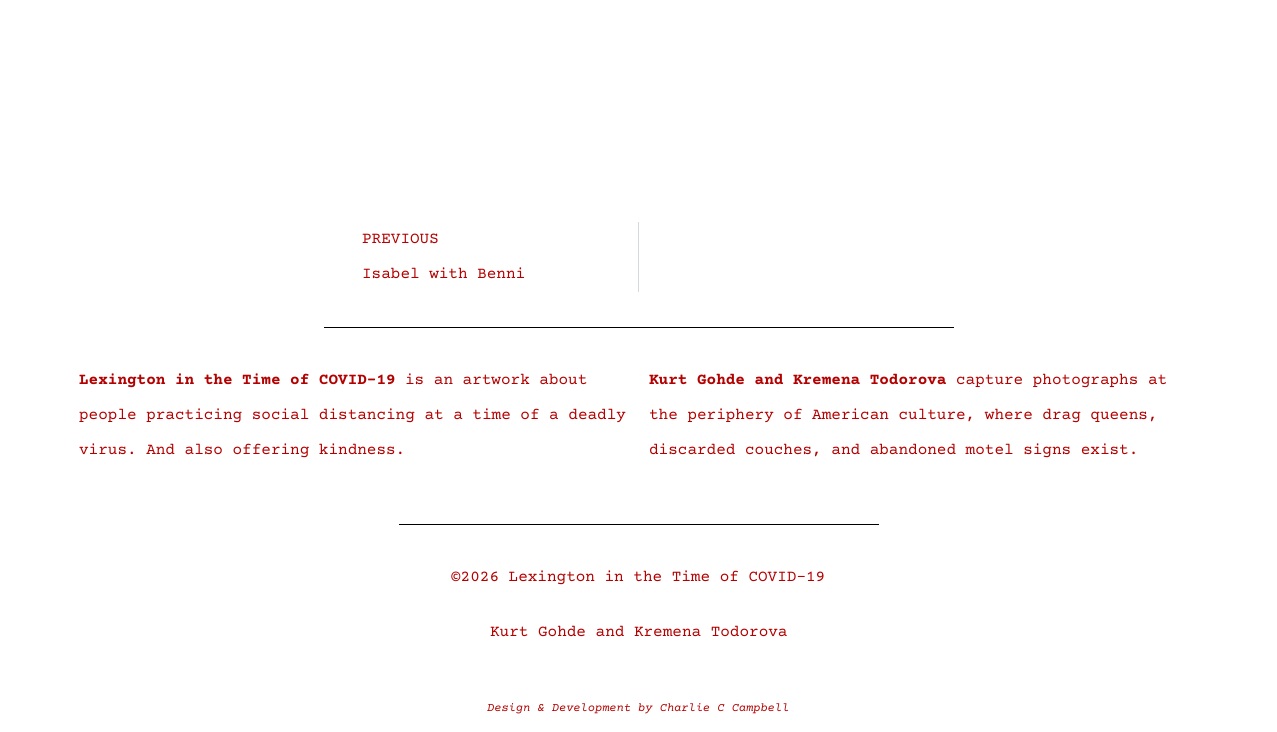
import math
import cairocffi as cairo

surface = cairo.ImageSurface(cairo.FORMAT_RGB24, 1277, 732)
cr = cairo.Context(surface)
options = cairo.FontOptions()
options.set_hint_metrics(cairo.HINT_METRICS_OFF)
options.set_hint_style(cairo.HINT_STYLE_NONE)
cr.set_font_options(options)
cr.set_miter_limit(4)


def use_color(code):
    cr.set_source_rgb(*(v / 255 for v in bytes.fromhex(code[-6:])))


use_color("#ffffff")
cr.paint()
cr.select_font_face("Courier Prime")
cr.set_font_size(16)
use_color("#b30000")
cr.move_to(362, 243)
cr.show_text("PREVIOUS")
cr.move_to(362, 278)
cr.show_text("Isabel with Benni")
use_color("#d5d8dc")
cr.rectangle(638, 222, 1, 70)
cr.fill()
use_color("#000000")
cr.rectangle(324, 327, 630, 1)
cr.fill()
cr.select_font_face("Courier Prime", cairo.FONT_SLANT_NORMAL, cairo.FONT_WEIGHT_BOLD)
use_color("#b30000")
cr.move_to(79, 384)
cr.show_text("Lexington in the Time of COVID-19")
cr.select_font_face("Courier Prime")
cr.move_to(405, 384)
cr.show_text("is an artwork about")
cr.move_to(79, 419)
cr.show_text("people practicing social distancing at a time of a deadly")
cr.move_to(79, 454)
cr.show_text("virus. And also offering kindness.")
cr.select_font_face("Courier Prime", cairo.FONT_SLANT_NORMAL, cairo.FONT_WEIGHT_BOLD)
cr.move_to(649, 384)
cr.show_text("Kurt Gohde and Kremena Todorova")
cr.select_font_face("Courier Prime")
cr.move_to(956, 384)
cr.show_text("capture photographs at")
cr.move_to(649, 419)
cr.show_text("the periphery of American culture, where drag queens,")
cr.move_to(649, 454)
cr.show_text("discarded couches, and abandoned motel signs exist.")
use_color("#000000")
cr.rectangle(399, 524, 480, 1)
cr.fill()
use_color("#b30000")
cr.move_to(451, 581)
cr.show_text("©2026 Lexington in the Time of COVID-19")
cr.move_to(490, 636)
cr.show_text("Kurt Gohde and Kremena Todorova")
cr.select_font_face("Courier Prime", cairo.FONT_SLANT_ITALIC)
cr.set_font_size(12)
cr.move_to(487, 711)
cr.show_text("Design & Development by Charlie C Campbell")
surface.write_to_png("result.png")
